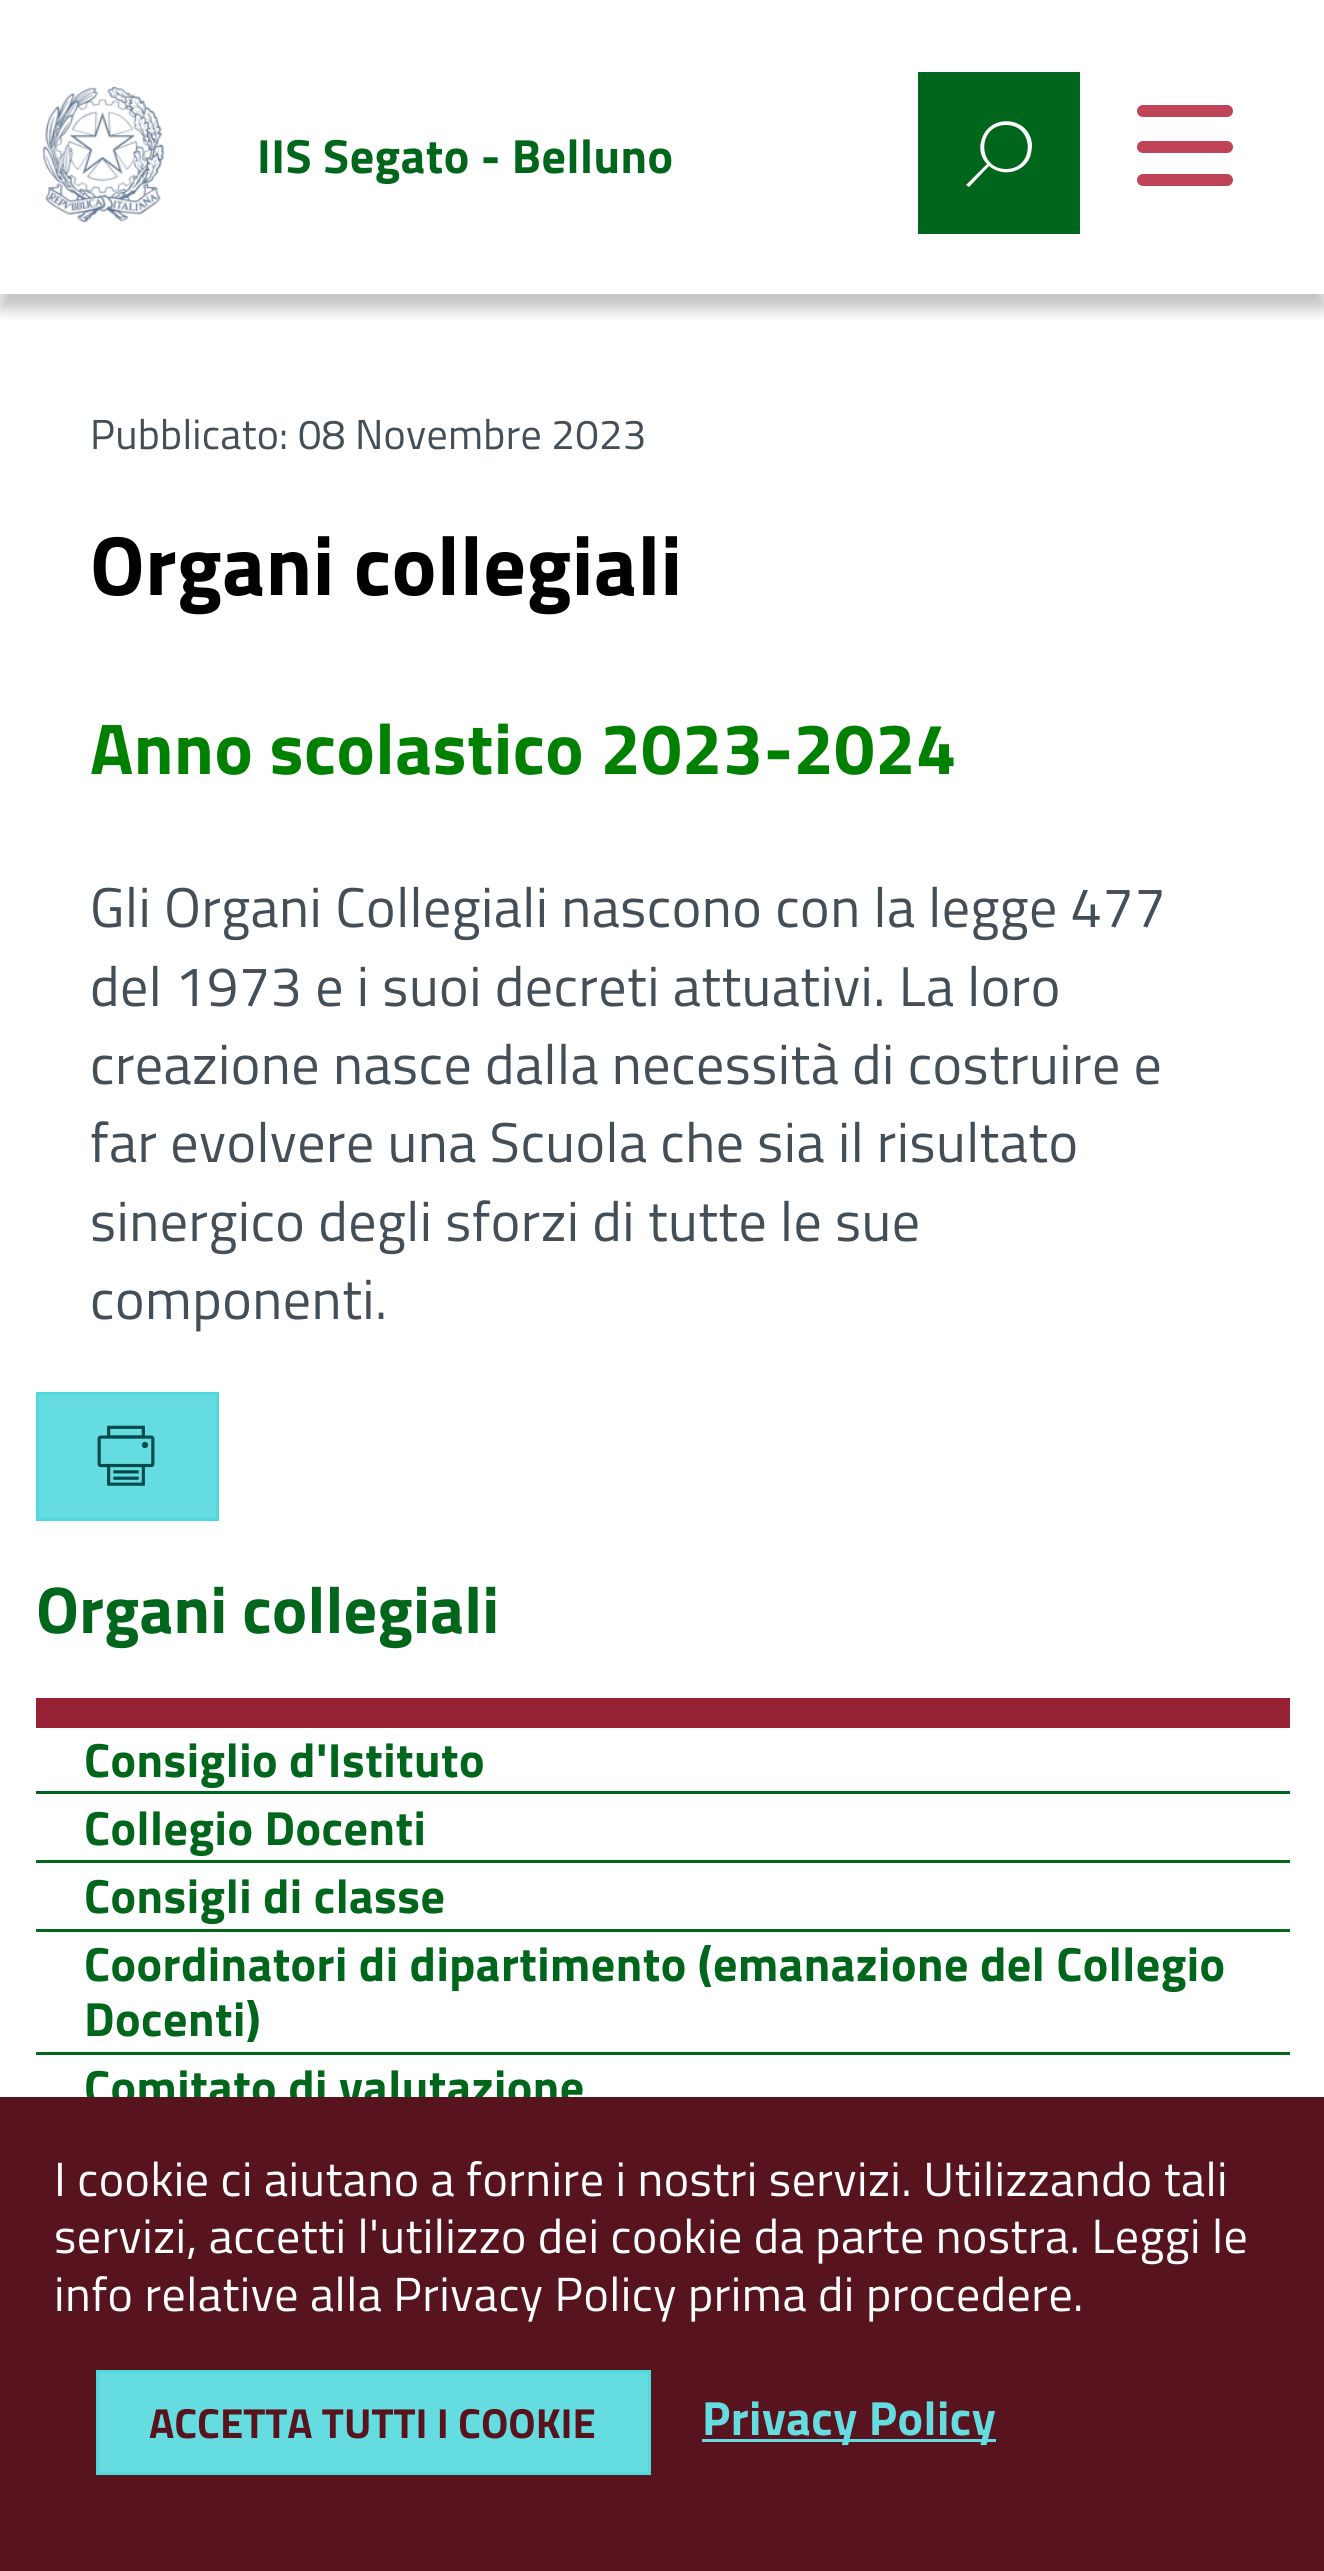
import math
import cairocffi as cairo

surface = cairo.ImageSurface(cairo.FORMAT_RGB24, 1324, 2571)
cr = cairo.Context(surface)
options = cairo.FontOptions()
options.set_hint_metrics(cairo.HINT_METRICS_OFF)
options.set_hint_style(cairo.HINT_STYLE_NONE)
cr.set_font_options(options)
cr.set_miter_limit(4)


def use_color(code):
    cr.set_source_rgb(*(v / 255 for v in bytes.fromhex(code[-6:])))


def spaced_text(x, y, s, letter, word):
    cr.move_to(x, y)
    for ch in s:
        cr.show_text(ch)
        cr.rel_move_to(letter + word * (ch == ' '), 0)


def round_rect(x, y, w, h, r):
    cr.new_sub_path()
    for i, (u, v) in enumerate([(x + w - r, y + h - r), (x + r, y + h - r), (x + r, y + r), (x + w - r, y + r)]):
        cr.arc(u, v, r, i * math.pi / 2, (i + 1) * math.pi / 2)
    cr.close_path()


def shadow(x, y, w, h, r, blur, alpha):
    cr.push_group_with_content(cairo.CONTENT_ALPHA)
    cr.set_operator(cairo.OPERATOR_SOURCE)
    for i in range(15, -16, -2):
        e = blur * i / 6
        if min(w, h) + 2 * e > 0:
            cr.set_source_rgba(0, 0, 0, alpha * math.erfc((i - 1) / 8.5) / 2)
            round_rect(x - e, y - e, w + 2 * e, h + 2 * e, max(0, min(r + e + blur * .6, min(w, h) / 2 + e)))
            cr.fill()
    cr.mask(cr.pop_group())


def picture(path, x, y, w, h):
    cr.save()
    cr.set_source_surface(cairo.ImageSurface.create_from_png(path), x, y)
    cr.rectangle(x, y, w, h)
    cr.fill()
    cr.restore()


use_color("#ffffff")
cr.paint()
cr.save()
cr.rectangle(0, 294, 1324, 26)
cr.clip()
use_color("#363636")
shadow(0, 15, 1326, 294, 0, 7.5, 0.3)
cr.restore()
picture("img1.png", 43, 87, 121, 135)
cr.select_font_face("Titillium Web", cairo.FONT_SLANT_NORMAL, cairo.FONT_WEIGHT_BOLD)
cr.set_font_size(48)
use_color("#00661b")
spaced_text(257, 173, "IIS Segato - Belluno", 0.48, 0)
cr.rectangle(918, 72, 162, 162)
cr.fill()
use_color("#ffffff")
cr.new_path()
cr.move_to(966, 185)
cr.line_to(987, 164)
cr.curve_to(981, 158, 979, 149, 981, 142)
cr.curve_to(987, 113, 1029, 115, 1032, 144)
cr.curve_to(1032, 150, 1031, 156, 1028, 161)
cr.curve_to(1019, 174, 1001, 176, 989, 166)
cr.line_to(969, 187)
cr.close_path()
cr.move_to(1006, 169)
cr.curve_to(1035, 169, 1035, 125, 1006, 125)
cr.curve_to(977, 125, 977, 169, 1006, 169)
cr.close_path()
cr.fill()
use_color("#bf4457")
round_rect(1137, 141, 96, 12, 6)
cr.fill()
round_rect(1137, 105, 96, 12, 6)
cr.fill()
round_rect(1137, 174, 96, 12, 6)
cr.fill()
cr.select_font_face("Titillium Web")
cr.set_font_size(42)
use_color("#444e57")
spaced_text(90, 449, "Pubblicato: 08 Novembre 2023", 0.25, 0)
cr.select_font_face("Titillium Web", cairo.FONT_SLANT_NORMAL, cairo.FONT_WEIGHT_BOLD)
cr.set_font_size(84)
use_color("#000000")
spaced_text(90, 595, "Organi collegiali", 0.48, 0)
cr.set_font_size(72)
use_color("#008000")
spaced_text(90, 774, "Anno scolastico 2023-2024", 0.48, 0)
cr.select_font_face("Titillium Web")
cr.set_font_size(56)
use_color("#444e57")
spaced_text(90, 927, "Gli Organi Collegiali nascono con la legge 477", 0.48, 0)
spaced_text(90, 1006, "del 1973 e i suoi decreti attuativi. La loro", 0.48, 0)
spaced_text(90, 1084, "creazione nasce dalla necessità di costruire e", 0.48, 0)
spaced_text(90, 1162, "far evolvere una Scuola che sia il risultato", 0.48, 0)
spaced_text(90, 1241, "sinergico degli sforzi di tutte le sue", 0.48, 0)
spaced_text(90, 1319, "componenti.", 0.48, 0)
use_color("#65dde0")
cr.rectangle(37.5, 1393.5, 180, 126)
cr.fill_preserve()
use_color("#50d8dc")
cr.set_line_width(3)
cr.stroke()
picture("img2.png", 97, 1425, 58, 61)
use_color("#962133")
cr.rectangle(36, 1698, 1254, 30)
cr.fill()
cr.select_font_face("Titillium Web", cairo.FONT_SLANT_NORMAL, cairo.FONT_WEIGHT_BOLD)
cr.set_font_size(66)
use_color("#00661b")
spaced_text(36, 1633, "Organi collegiali", 0.25, 0)
cr.set_font_size(48)
spaced_text(84, 1777, "Consiglio d'Istituto", 0.48, 0)
cr.rectangle(36, 1791, 1254, 3)
cr.fill()
spaced_text(84, 1845, "Collegio Docenti", 0.48, 0)
cr.rectangle(36, 1860, 1254, 3)
cr.fill()
spaced_text(84, 1913, "Consigli di classe", 0.48, 0)
cr.rectangle(36, 1929, 1254, 3)
cr.fill()
spaced_text(84, 1981, "Coordinatori di dipartimento (emanazione del Collegio", 0.48, 0)
spaced_text(84, 2036, "Docenti)", 0.48, 0)
cr.rectangle(36, 2052, 1254, 3)
cr.fill()
spaced_text(84, 2104, "Comitato di valutazione", 0.48, 0)
use_color("#57131e")
cr.rectangle(0, 2097, 1324, 474)
cr.fill()
cr.select_font_face("Titillium Web")
use_color("#ffffff")
spaced_text(54, 2196, "I cookie ci aiutano a fornire i nostri servizi. Utilizzando tali", 0.48, 0)
spaced_text(54, 2253, "servizi, accetti l'utilizzo dei cookie da parte nostra. Leggi le", 0.48, 0)
spaced_text(54, 2311, "info relative alla Privacy Policy prima di procedere.", 0.48, 0)
use_color("#65dde0")
cr.rectangle(97.5, 2371.5, 552, 102)
cr.fill_preserve()
use_color("#50d8dc")
cr.stroke()
cr.select_font_face("Titillium Web", cairo.FONT_SLANT_NORMAL, cairo.FONT_WEIGHT_BOLD)
cr.set_font_size(42)
use_color("#57131e")
cr.move_to(149, 2438)
cr.show_text("ACCETTA TUTTI I COOKIE")
use_color("#65dcdf")
cr.rectangle(702, 2439, 294, 3)
cr.fill()
cr.set_font_size(48)
spaced_text(702, 2435, "Privacy Policy", 0.48, 0)
surface.write_to_png("result.png")
